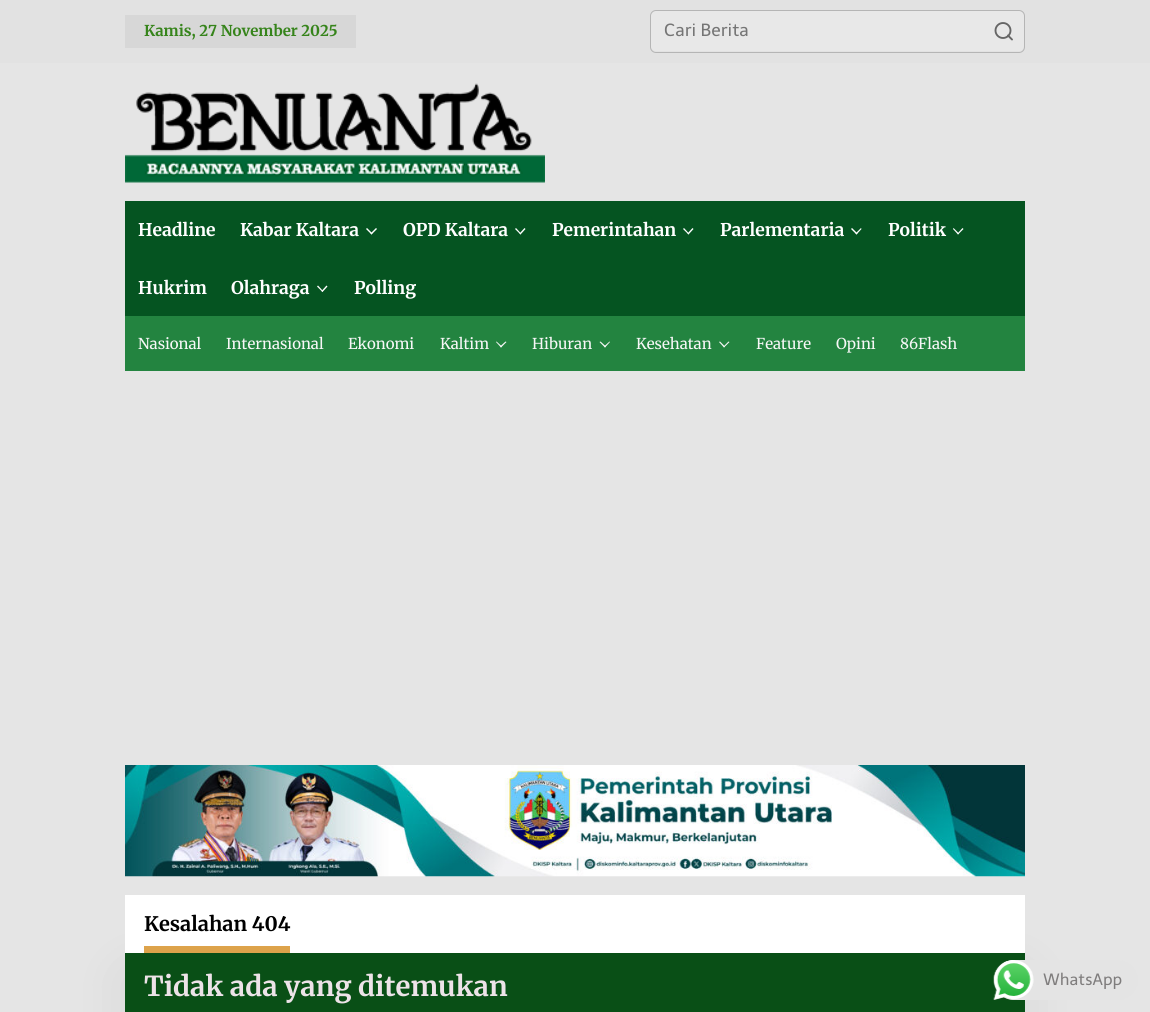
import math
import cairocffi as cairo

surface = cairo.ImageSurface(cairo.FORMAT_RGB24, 1150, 1012)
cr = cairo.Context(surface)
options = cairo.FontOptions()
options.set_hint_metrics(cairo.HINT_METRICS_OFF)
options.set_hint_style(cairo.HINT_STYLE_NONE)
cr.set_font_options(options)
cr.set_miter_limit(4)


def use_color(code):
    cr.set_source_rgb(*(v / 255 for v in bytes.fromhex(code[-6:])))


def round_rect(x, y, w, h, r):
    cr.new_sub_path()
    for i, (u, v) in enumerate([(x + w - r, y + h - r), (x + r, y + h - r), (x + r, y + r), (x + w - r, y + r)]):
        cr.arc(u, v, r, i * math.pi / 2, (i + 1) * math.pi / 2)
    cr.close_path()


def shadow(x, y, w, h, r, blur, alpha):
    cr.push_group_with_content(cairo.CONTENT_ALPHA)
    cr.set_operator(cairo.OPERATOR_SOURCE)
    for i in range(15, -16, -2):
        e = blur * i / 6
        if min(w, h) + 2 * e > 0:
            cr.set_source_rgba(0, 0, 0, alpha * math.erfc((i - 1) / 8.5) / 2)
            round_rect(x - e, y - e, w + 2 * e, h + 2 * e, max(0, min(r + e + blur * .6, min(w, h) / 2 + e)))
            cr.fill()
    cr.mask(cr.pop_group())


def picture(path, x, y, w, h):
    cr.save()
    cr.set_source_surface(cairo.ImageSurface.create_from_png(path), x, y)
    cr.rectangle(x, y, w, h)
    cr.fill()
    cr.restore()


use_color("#e5e5e5")
cr.paint()
use_color("#e2e2e2")
cr.rectangle(0, 0, 1150, 63)
cr.fill()
use_color("#d7d7d7")
cr.rectangle(125, 15, 231, 33)
cr.fill()
cr.select_font_face("Merriweather", cairo.FONT_SLANT_NORMAL, cairo.FONT_WEIGHT_BOLD)
cr.set_font_size(15)
use_color("#36841b")
cr.move_to(144, 36)
cr.show_text("Kamis, 27 November 2025")
use_color("#e8e8e8")
round_rect(651, 11, 373, 40, 5)
cr.fill()
round_rect(650.5, 10.5, 374, 42, 5.5)
use_color("#b5b5b5")
cr.set_line_width(1)
cr.stroke()
cr.select_font_face("Telex")
cr.set_font_size(17.5)
use_color("#757575")
cr.move_to(664, 36)
cr.show_text("Cari Berita")
cr.new_path()
cr.arc(1003, 30.5, 7.5, 0, 2 * math.pi)
use_color("#666666")
cr.set_line_width(1.9)
cr.stroke()
cr.new_path()
cr.move_to(1012, 39.5)
cr.line_to(1008, 35.5)
cr.set_line_cap(cairo.LINE_CAP_ROUND)
cr.set_line_join(cairo.LINE_JOIN_ROUND)
cr.stroke()
picture("img1.png", 125, 83, 420, 100)
use_color("#055421")
cr.rectangle(125, 201, 900, 115)
cr.fill()
cr.select_font_face("Merriweather", cairo.FONT_SLANT_NORMAL, cairo.FONT_WEIGHT_BOLD)
use_color("#ffffff")
cr.move_to(138, 236)
cr.show_text("Headline")
cr.move_to(240, 236)
cr.show_text("Kabar Kaltara")
cr.new_path()
cr.move_to(376, 228)
cr.line_to(377, 229)
cr.line_to(371.5, 234.5)
cr.line_to(370.5, 233.5)
cr.close_path()
cr.fill()
cr.new_path()
cr.move_to(367, 228)
cr.line_to(372.5, 233.5)
cr.line_to(371.5, 234.5)
cr.line_to(366, 229)
cr.close_path()
cr.fill()
cr.move_to(403, 236)
cr.show_text("OPD Kaltara")
cr.new_path()
cr.move_to(524.5, 228)
cr.line_to(525.5, 229)
cr.line_to(520.5, 234.5)
cr.line_to(519.5, 233.5)
cr.close_path()
cr.fill()
cr.new_path()
cr.move_to(516, 228)
cr.line_to(521, 233.5)
cr.line_to(520.5, 234.5)
cr.line_to(515, 229)
cr.close_path()
cr.fill()
cr.move_to(552, 236)
cr.show_text("Pemerintahan")
cr.new_path()
cr.move_to(692.5, 228)
cr.line_to(693.5, 229)
cr.line_to(688.5, 234.5)
cr.line_to(687.5, 233.5)
cr.close_path()
cr.fill()
cr.new_path()
cr.move_to(684, 228)
cr.line_to(689, 233.5)
cr.line_to(688.5, 234.5)
cr.line_to(683, 229)
cr.close_path()
cr.fill()
cr.move_to(720, 236)
cr.show_text("Parlementaria")
cr.new_path()
cr.move_to(861, 228)
cr.line_to(861.5, 229)
cr.line_to(856.5, 234.5)
cr.line_to(855.5, 233.5)
cr.close_path()
cr.fill()
cr.new_path()
cr.move_to(852, 228)
cr.line_to(857.5, 233.5)
cr.line_to(856.5, 234.5)
cr.line_to(851, 229)
cr.close_path()
cr.fill()
cr.move_to(888, 236)
cr.show_text("Politik")
cr.new_path()
cr.move_to(962.5, 228)
cr.line_to(963.5, 229)
cr.line_to(958, 234.5)
cr.line_to(957.5, 233.5)
cr.close_path()
cr.fill()
cr.new_path()
cr.move_to(953.5, 228)
cr.line_to(959, 233.5)
cr.line_to(958, 234.5)
cr.line_to(953, 229)
cr.close_path()
cr.fill()
cr.move_to(138, 294)
cr.show_text("Hukrim")
cr.move_to(231, 294)
cr.show_text("Olahraga")
cr.new_path()
cr.move_to(326.5, 285.5)
cr.line_to(327.5, 286.5)
cr.line_to(322.5, 292)
cr.line_to(321.5, 291)
cr.close_path()
cr.fill()
cr.new_path()
cr.move_to(318, 285.5)
cr.line_to(323, 291)
cr.line_to(322.5, 292)
cr.line_to(317, 286.5)
cr.close_path()
cr.fill()
cr.move_to(354, 294)
cr.show_text("Polling")
use_color("#238440")
cr.rectangle(125, 316, 900, 55)
cr.fill()
cr.select_font_face("Merriweather")
cr.set_font_size(15)
use_color("#f7f7f7")
cr.move_to(138, 349)
cr.show_text("Nasional")
cr.move_to(226, 349)
cr.show_text("Internasional")
cr.move_to(348, 349)
cr.show_text("Ekonomi")
cr.move_to(440, 349)
cr.show_text("Kaltim")
cr.new_path()
cr.move_to(505.5, 341.5)
cr.line_to(506.5, 342)
cr.line_to(501, 347.5)
cr.line_to(500, 346.5)
cr.close_path()
cr.fill()
cr.new_path()
cr.move_to(496.5, 341.5)
cr.line_to(502, 346.5)
cr.line_to(501, 347.5)
cr.line_to(496, 342)
cr.close_path()
cr.fill()
cr.move_to(532, 349)
cr.show_text("Hiburan")
cr.new_path()
cr.move_to(609.5, 341.5)
cr.line_to(610, 342)
cr.line_to(605, 347.5)
cr.line_to(604, 346.5)
cr.close_path()
cr.fill()
cr.new_path()
cr.move_to(600.5, 341.5)
cr.line_to(606, 346.5)
cr.line_to(605, 347.5)
cr.line_to(599.5, 342)
cr.close_path()
cr.fill()
cr.move_to(636, 349)
cr.show_text("Kesehatan")
cr.new_path()
cr.move_to(728.5, 341.5)
cr.line_to(729.5, 342)
cr.line_to(724, 347.5)
cr.line_to(723.5, 346.5)
cr.close_path()
cr.fill()
cr.new_path()
cr.move_to(720, 341.5)
cr.line_to(725, 346.5)
cr.line_to(724, 347.5)
cr.line_to(719, 342)
cr.close_path()
cr.fill()
cr.move_to(756, 349)
cr.show_text("Feature")
cr.move_to(836, 349)
cr.show_text("Opini")
cr.move_to(900, 349)
cr.show_text("86Flash")
picture("img2.png", 125, 765, 900, 112)
use_color("#000000")
shadow(125, 973, 900, 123, 0, 28, 0.07)
use_color("#ffffff")
cr.rectangle(125, 895, 900, 58)
cr.fill()
use_color("#dda34b")
cr.rectangle(144, 946, 146, 7)
cr.fill()
cr.select_font_face("Merriweather", cairo.FONT_SLANT_NORMAL, cairo.FONT_WEIGHT_BOLD)
cr.set_font_size(20)
use_color("#000000")
cr.move_to(144, 931)
cr.show_text("Kesalahan 404")
use_color("#094f16")
cr.rectangle(125, 953, 900, 59)
cr.fill()
cr.set_font_size(27.5)
use_color("#ede3e8")
cr.move_to(144, 996)
cr.show_text("Tidak ada yang ditemukan")
use_color("#e4e4e4")
round_rect(994, 960, 144, 40, 20)
cr.fill()
picture("img3.png", 993, 960, 41, 40)
cr.select_font_face("Telex")
cr.set_font_size(16.25)
use_color("#7f7d7d")
cr.move_to(1043, 985)
cr.show_text("WhatsApp")
surface.write_to_png("result.png")
